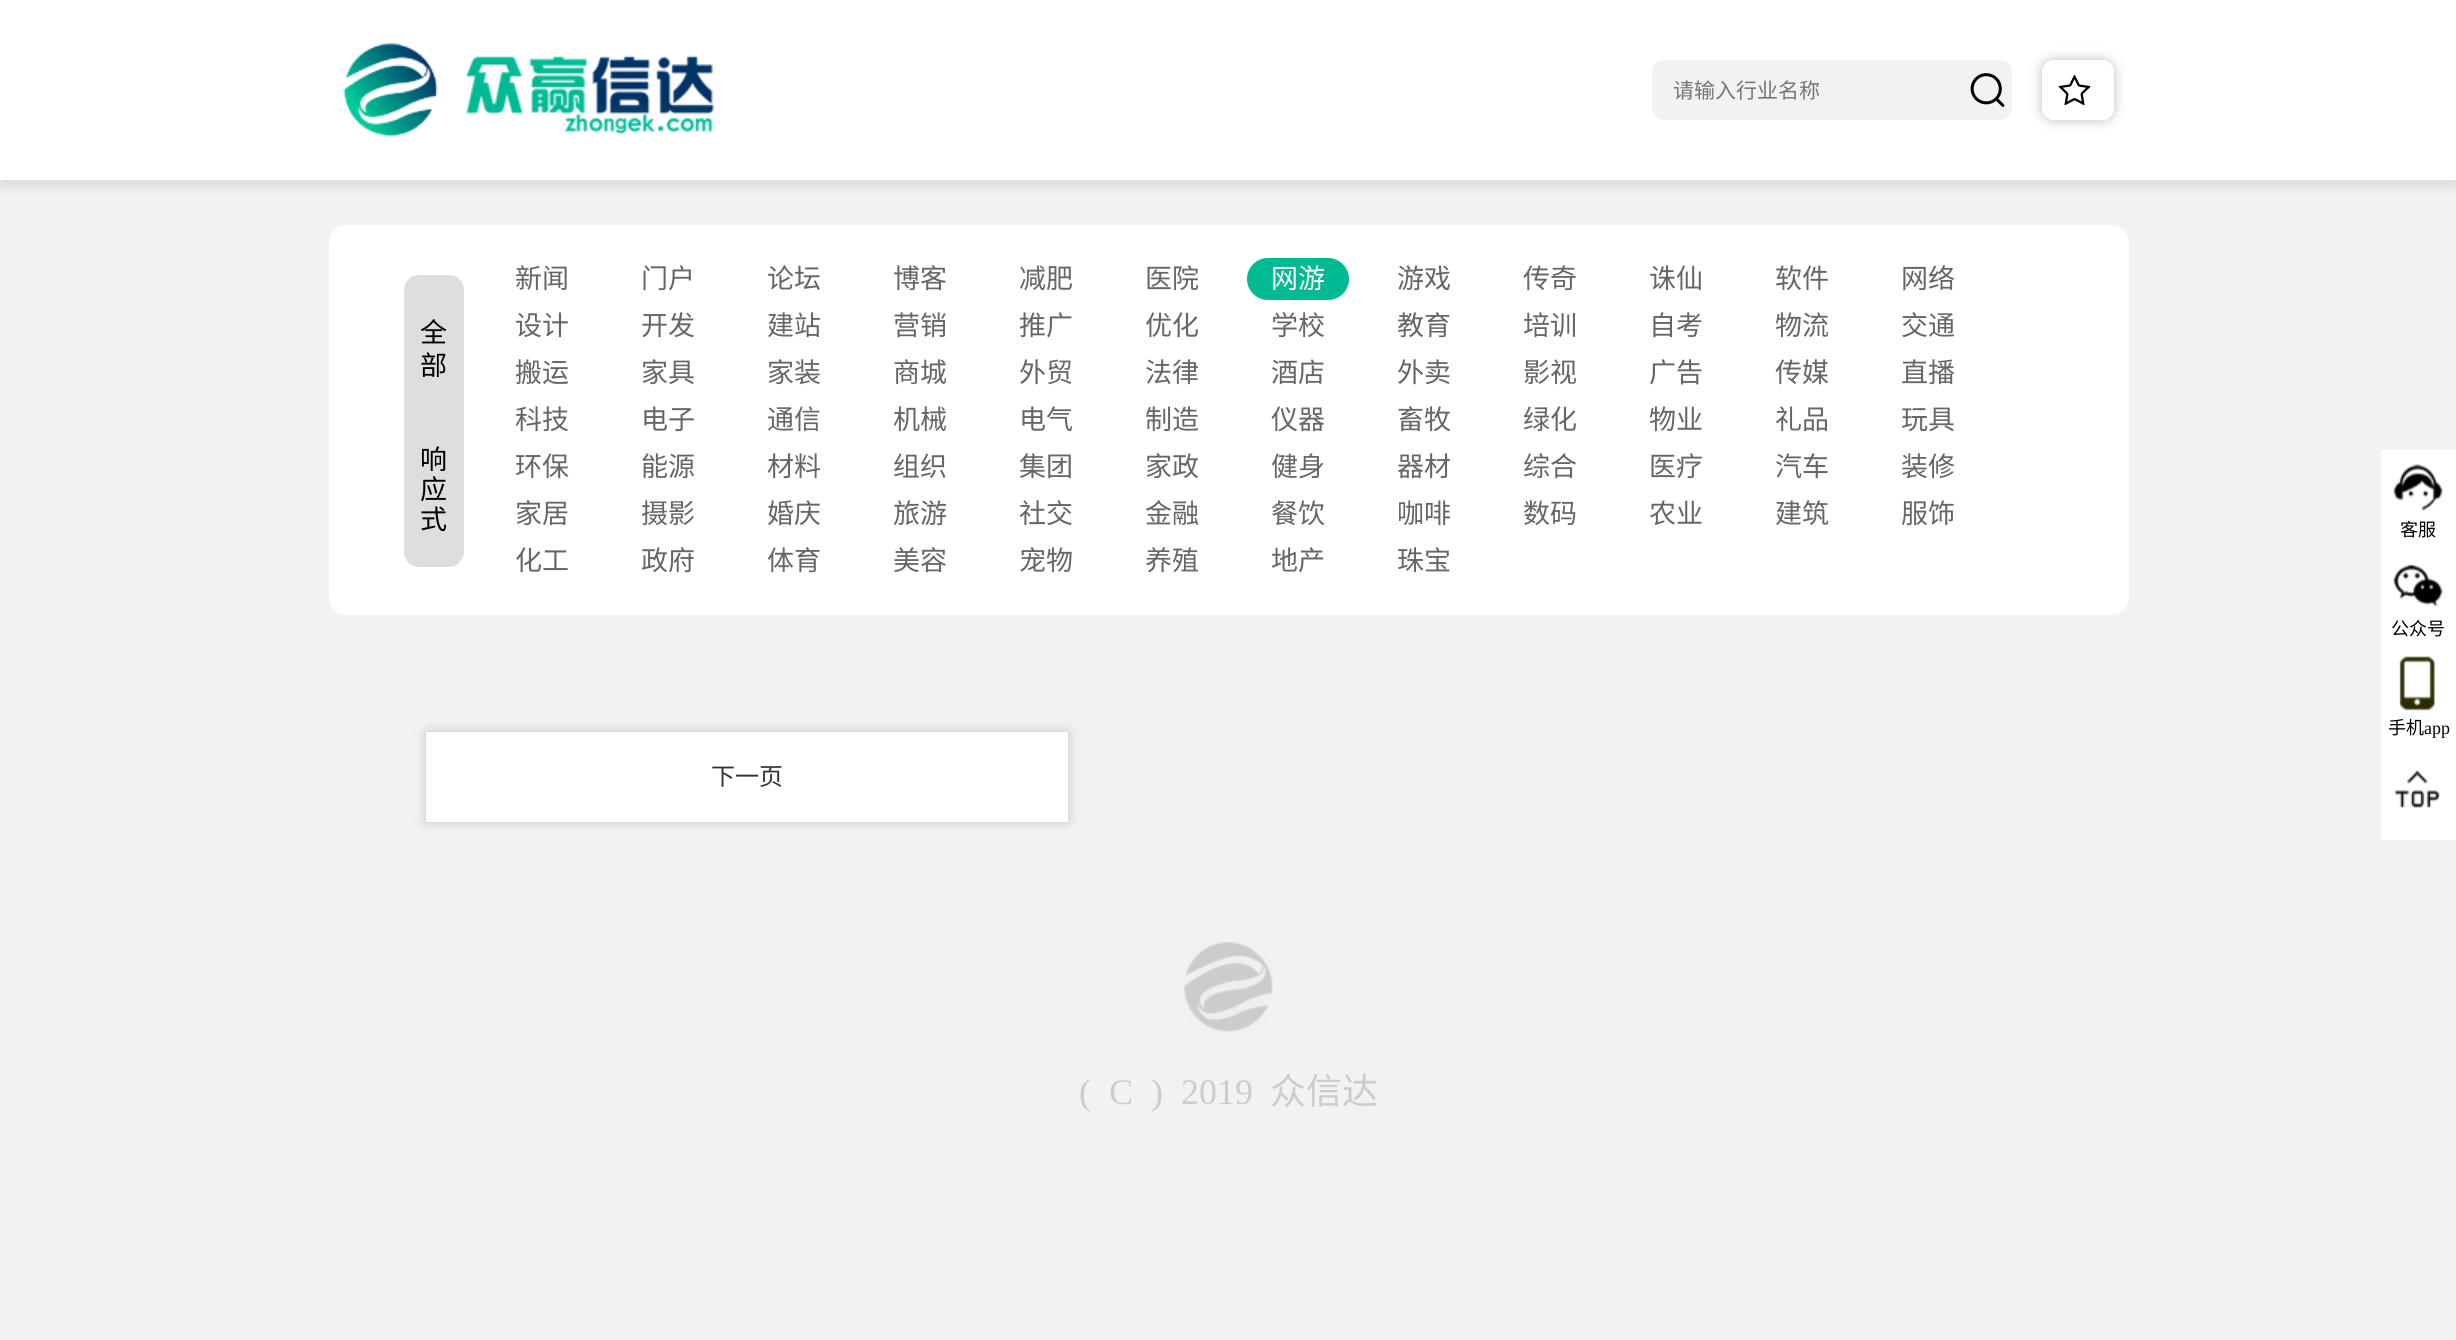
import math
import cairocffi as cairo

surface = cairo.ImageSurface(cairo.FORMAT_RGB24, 2456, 1340)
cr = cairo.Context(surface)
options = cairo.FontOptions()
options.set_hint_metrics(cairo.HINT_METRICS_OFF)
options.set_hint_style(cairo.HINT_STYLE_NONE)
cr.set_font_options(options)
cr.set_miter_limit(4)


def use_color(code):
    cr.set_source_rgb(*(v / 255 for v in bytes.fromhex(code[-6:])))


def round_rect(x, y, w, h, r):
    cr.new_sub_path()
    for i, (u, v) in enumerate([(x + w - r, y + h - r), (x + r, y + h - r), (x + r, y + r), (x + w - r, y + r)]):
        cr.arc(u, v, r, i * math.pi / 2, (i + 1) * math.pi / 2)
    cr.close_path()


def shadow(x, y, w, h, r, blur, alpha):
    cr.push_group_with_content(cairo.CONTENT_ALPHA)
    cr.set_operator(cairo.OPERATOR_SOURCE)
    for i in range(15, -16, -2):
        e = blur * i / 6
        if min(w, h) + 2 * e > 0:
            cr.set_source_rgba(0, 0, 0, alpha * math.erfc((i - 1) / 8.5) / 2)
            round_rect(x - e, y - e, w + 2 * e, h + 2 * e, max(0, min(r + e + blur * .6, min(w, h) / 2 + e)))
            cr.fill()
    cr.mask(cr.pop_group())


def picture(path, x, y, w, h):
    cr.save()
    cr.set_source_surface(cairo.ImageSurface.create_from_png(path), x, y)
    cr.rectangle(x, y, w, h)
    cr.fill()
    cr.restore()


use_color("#f2f2f2")
cr.paint()
use_color("#000000")
shadow(0, 6, 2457, 180, 0, 6, 0.1)
use_color("#ffffff")
cr.rectangle(0, 0, 2456, 180)
cr.fill()
picture("img1.png", 343, 43, 94, 94)
picture("img2.png", 436, 55, 278, 79)
use_color("#f2f2f2")
round_rect(1652, 60, 360, 60, 12)
cr.fill()
cr.select_font_face("Noto Sans CJK SC")
cr.set_font_size(21)
use_color("#757575")
cr.move_to(1673, 98)
cr.show_text("请输入行业名称")
picture("img3.png", 1970, 73, 35, 34)
cr.save()
cr.set_fill_rule(cairo.FILL_RULE_EVEN_ODD)
cr.new_path()
cr.move_to(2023, 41)
cr.line_to(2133, 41)
cr.line_to(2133, 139)
cr.line_to(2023, 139)
cr.close_path()
cr.move_to(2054, 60)
cr.line_to(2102, 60)
cr.curve_to(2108.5, 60, 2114, 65.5, 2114, 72)
cr.line_to(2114, 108)
cr.curve_to(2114, 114.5, 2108.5, 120, 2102, 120)
cr.line_to(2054, 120)
cr.curve_to(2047.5, 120, 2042, 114.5, 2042, 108)
cr.line_to(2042, 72)
cr.curve_to(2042, 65.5, 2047.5, 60, 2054, 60)
cr.close_path()
cr.clip()
use_color("#bdbdbd")
shadow(2042, 60, 72, 60, 12, 6, 1)
cr.restore()
picture("img4.png", 2058, 74, 33, 32)
use_color("#ffffff")
round_rect(329, 225, 1800, 390, 18)
cr.fill()
cr.set_font_size(27)
use_color("#666666")
cr.move_to(515, 288)
cr.show_text("新闻")
cr.move_to(641, 288)
cr.show_text("门户")
cr.move_to(767, 288)
cr.show_text("论坛")
cr.move_to(893, 288)
cr.show_text("博客")
cr.move_to(1019, 288)
cr.show_text("减肥")
cr.move_to(1145, 288)
cr.show_text("医院")
use_color("#00ba93")
round_rect(1247, 258, 102, 42, 21)
cr.fill()
use_color("#ffffff")
cr.move_to(1271, 288)
cr.show_text("网游")
use_color("#666666")
cr.move_to(1397, 288)
cr.show_text("游戏")
cr.move_to(1523, 288)
cr.show_text("传奇")
cr.move_to(1649, 288)
cr.show_text("诛仙")
cr.move_to(1775, 288)
cr.show_text("软件")
cr.move_to(1901, 288)
cr.show_text("网络")
use_color("#dedede")
round_rect(404, 275, 60, 292, 15)
cr.fill()
use_color("#000000")
cr.move_to(420, 342)
cr.show_text("全")
cr.move_to(420, 375)
cr.show_text("部")
cr.move_to(420, 469)
cr.show_text("响")
cr.move_to(420, 499)
cr.show_text("应")
cr.move_to(420, 529)
cr.show_text("式")
use_color("#666666")
cr.move_to(515, 335)
cr.show_text("设计")
cr.move_to(641, 335)
cr.show_text("开发")
cr.move_to(767, 335)
cr.show_text("建站")
cr.move_to(893, 335)
cr.show_text("营销")
cr.move_to(1019, 335)
cr.show_text("推广")
cr.move_to(1145, 335)
cr.show_text("优化")
cr.move_to(1271, 335)
cr.show_text("学校")
cr.move_to(1397, 335)
cr.show_text("教育")
cr.move_to(1523, 335)
cr.show_text("培训")
cr.move_to(1649, 335)
cr.show_text("自考")
cr.move_to(1775, 335)
cr.show_text("物流")
cr.move_to(1901, 335)
cr.show_text("交通")
cr.move_to(515, 382)
cr.show_text("搬运")
cr.move_to(641, 382)
cr.show_text("家具")
cr.move_to(767, 382)
cr.show_text("家装")
cr.move_to(893, 382)
cr.show_text("商城")
cr.move_to(1019, 382)
cr.show_text("外贸")
cr.move_to(1145, 382)
cr.show_text("法律")
cr.move_to(1271, 382)
cr.show_text("酒店")
cr.move_to(1397, 382)
cr.show_text("外卖")
cr.move_to(1523, 382)
cr.show_text("影视")
cr.move_to(1649, 382)
cr.show_text("广告")
cr.move_to(1775, 382)
cr.show_text("传媒")
cr.move_to(1901, 382)
cr.show_text("直播")
cr.move_to(515, 429)
cr.show_text("科技")
cr.move_to(641, 429)
cr.show_text("电子")
cr.move_to(767, 429)
cr.show_text("通信")
cr.move_to(893, 429)
cr.show_text("机械")
cr.move_to(1019, 429)
cr.show_text("电气")
cr.move_to(1145, 429)
cr.show_text("制造")
cr.move_to(1271, 429)
cr.show_text("仪器")
cr.move_to(1397, 429)
cr.show_text("畜牧")
cr.move_to(1523, 429)
cr.show_text("绿化")
cr.move_to(1649, 429)
cr.show_text("物业")
cr.move_to(1775, 429)
cr.show_text("礼品")
cr.move_to(1901, 429)
cr.show_text("玩具")
cr.move_to(515, 476)
cr.show_text("环保")
cr.move_to(641, 476)
cr.show_text("能源")
cr.move_to(767, 476)
cr.show_text("材料")
cr.move_to(893, 476)
cr.show_text("组织")
cr.move_to(1019, 476)
cr.show_text("集团")
cr.move_to(1145, 476)
cr.show_text("家政")
cr.move_to(1271, 476)
cr.show_text("健身")
cr.move_to(1397, 476)
cr.show_text("器材")
cr.move_to(1523, 476)
cr.show_text("综合")
cr.move_to(1649, 476)
cr.show_text("医疗")
cr.move_to(1775, 476)
cr.show_text("汽车")
cr.move_to(1901, 476)
cr.show_text("装修")
cr.move_to(515, 523)
cr.show_text("家居")
cr.move_to(641, 523)
cr.show_text("摄影")
cr.move_to(767, 523)
cr.show_text("婚庆")
cr.move_to(893, 523)
cr.show_text("旅游")
cr.move_to(1019, 523)
cr.show_text("社交")
cr.move_to(1145, 523)
cr.show_text("金融")
cr.move_to(1271, 523)
cr.show_text("餐饮")
cr.move_to(1397, 523)
cr.show_text("咖啡")
cr.move_to(1523, 523)
cr.show_text("数码")
cr.move_to(1649, 523)
cr.show_text("农业")
cr.move_to(1775, 523)
cr.show_text("建筑")
cr.move_to(1901, 523)
cr.show_text("服饰")
cr.move_to(515, 570)
cr.show_text("化工")
cr.move_to(641, 570)
cr.show_text("政府")
cr.move_to(767, 570)
cr.show_text("体育")
cr.move_to(893, 570)
cr.show_text("美容")
cr.move_to(1019, 570)
cr.show_text("宠物")
cr.move_to(1145, 570)
cr.show_text("养殖")
cr.move_to(1271, 570)
cr.show_text("地产")
cr.move_to(1397, 570)
cr.show_text("珠宝")
use_color("#ffffff")
cr.rectangle(2381, 450, 75, 390)
cr.fill()
picture("img5.png", 2393, 464, 50, 47)
cr.set_font_size(18)
use_color("#000000")
cr.move_to(2400, 536)
cr.show_text("客服")
picture("img6.png", 2393, 564, 50, 43)
cr.move_to(2391, 635)
cr.show_text("公众号")
picture("img7.png", 2399, 656, 36, 55)
cr.move_to(2388, 734)
cr.show_text("手机")
cr.select_font_face("Liberation Serif")
cr.move_to(2424, 734)
cr.show_text("app")
picture("img8.png", 2395, 770, 45, 38)
use_color("#000000")
shadow(426, 732, 642, 90, 0, 6, 0.2)
use_color("#ffffff")
cr.rectangle(426, 732, 642, 90)
cr.fill()
cr.select_font_face("Noto Sans CJK SC")
cr.set_font_size(24)
use_color("#333333")
cr.move_to(711, 785)
cr.show_text("下一页")
picture("img9.png", 1183, 942, 90, 90)
cr.select_font_face("Liberation Serif")
cr.set_font_size(36)
use_color("#cccccc")
cr.move_to(1079, 1104)
cr.show_text("( C ) 2019")
cr.select_font_face("Noto Sans CJK SC")
cr.move_to(1270, 1104)
cr.show_text("众信达")
surface.write_to_png("result.png")
